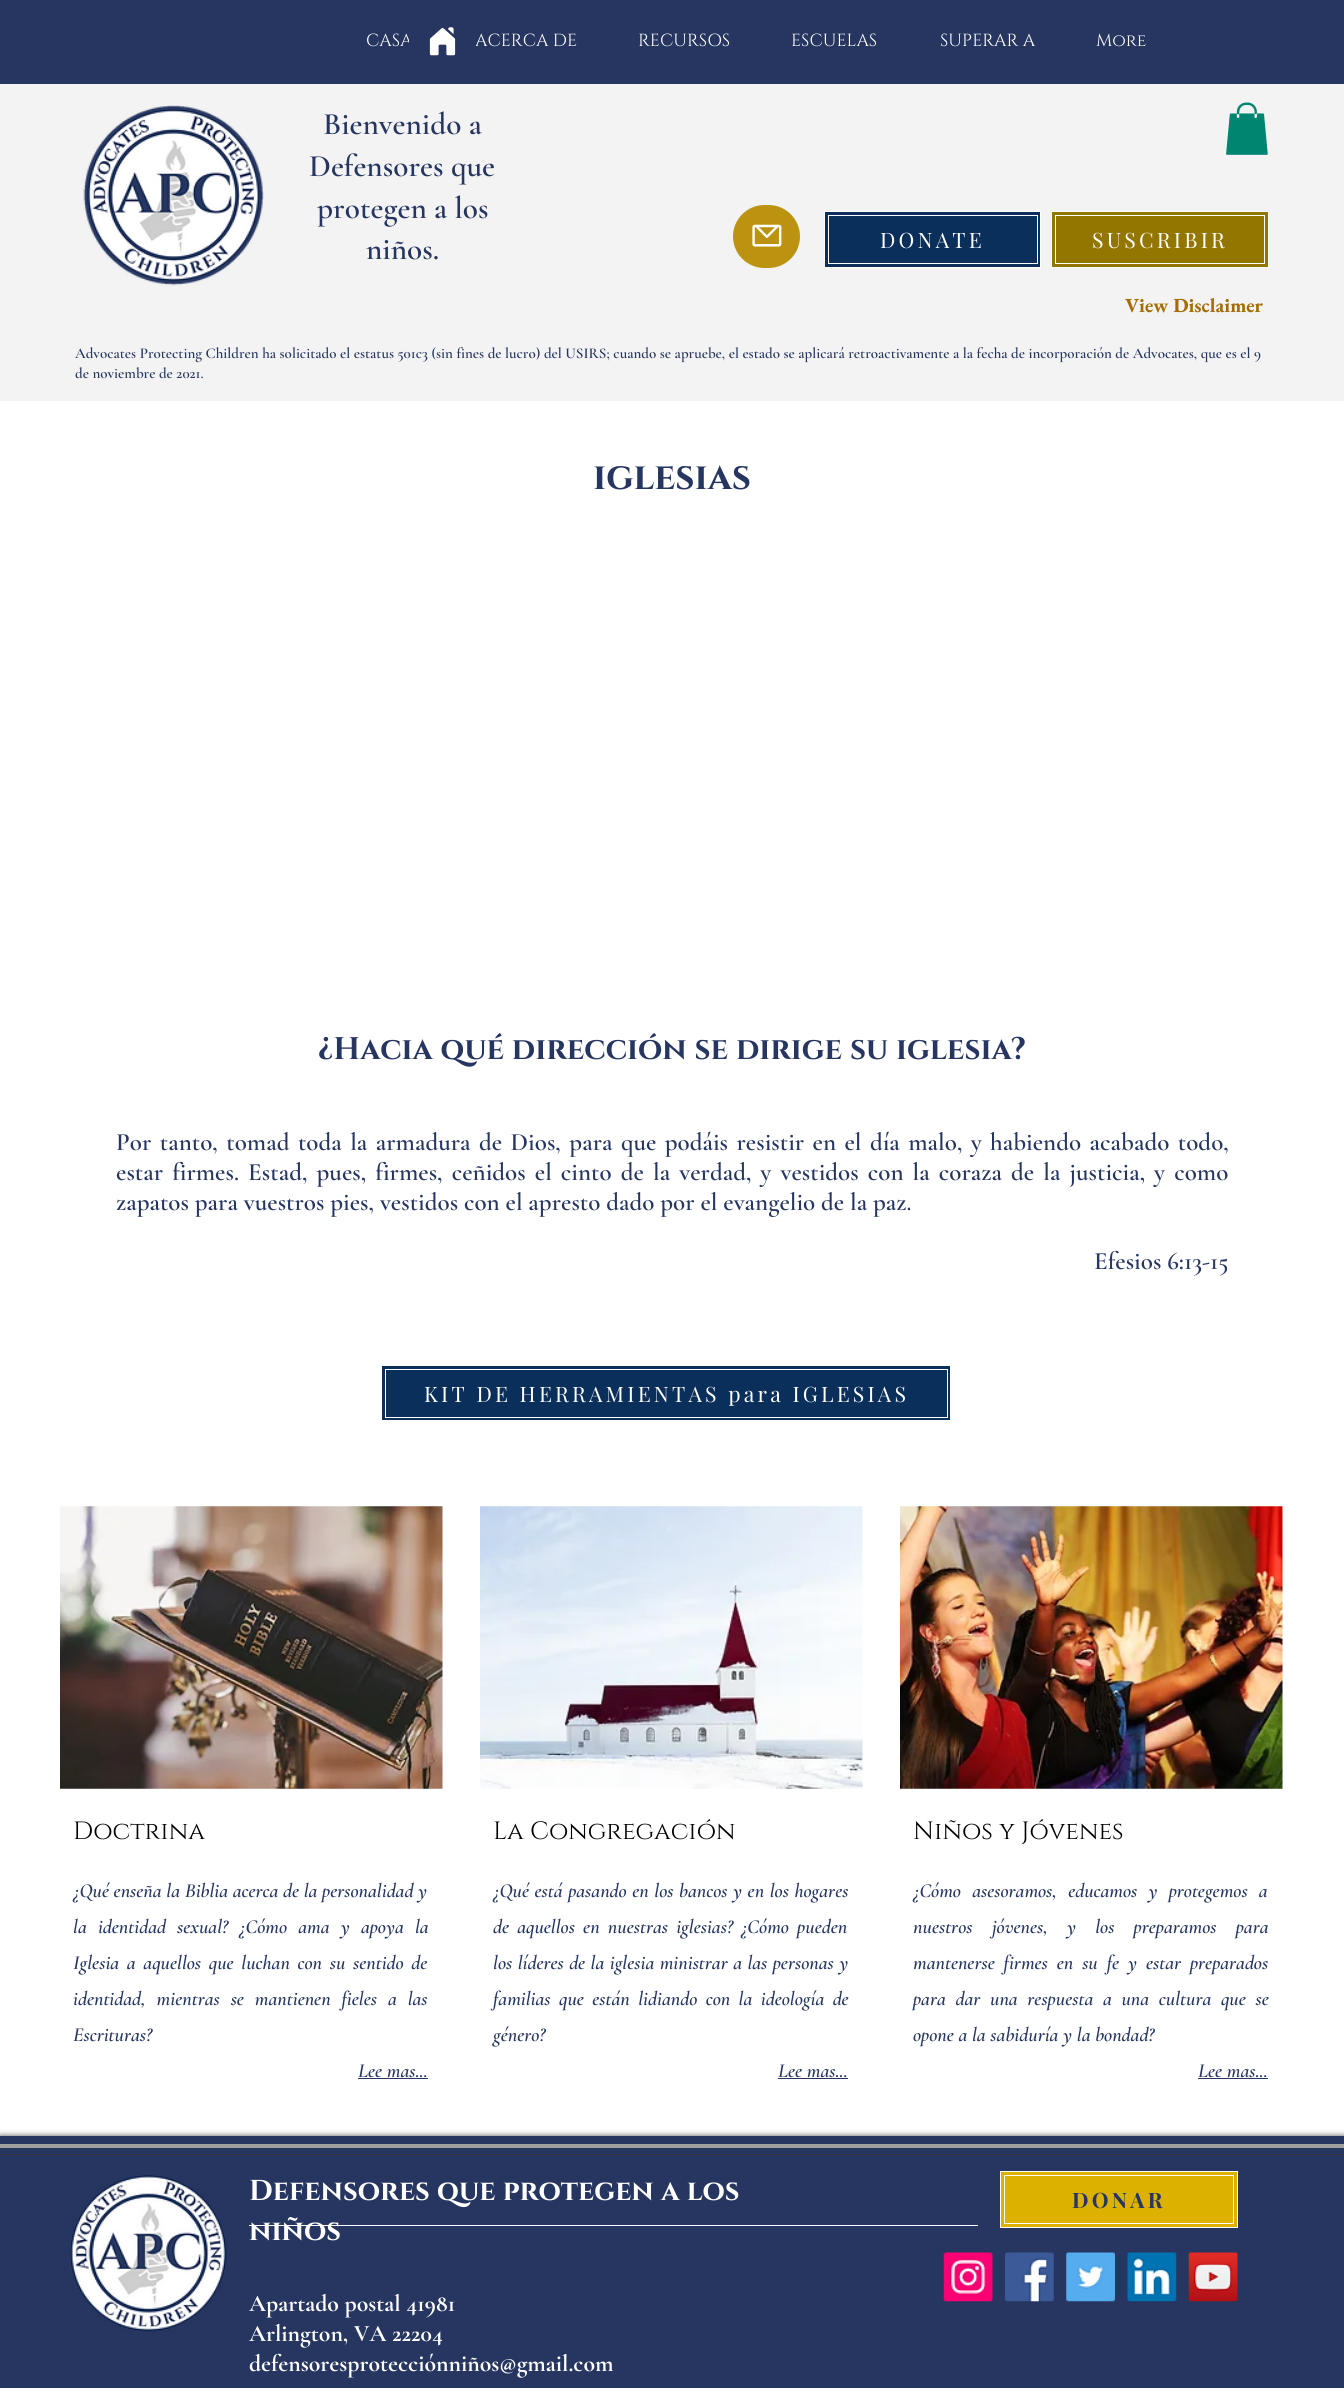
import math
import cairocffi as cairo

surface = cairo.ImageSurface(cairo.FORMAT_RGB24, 1344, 2388)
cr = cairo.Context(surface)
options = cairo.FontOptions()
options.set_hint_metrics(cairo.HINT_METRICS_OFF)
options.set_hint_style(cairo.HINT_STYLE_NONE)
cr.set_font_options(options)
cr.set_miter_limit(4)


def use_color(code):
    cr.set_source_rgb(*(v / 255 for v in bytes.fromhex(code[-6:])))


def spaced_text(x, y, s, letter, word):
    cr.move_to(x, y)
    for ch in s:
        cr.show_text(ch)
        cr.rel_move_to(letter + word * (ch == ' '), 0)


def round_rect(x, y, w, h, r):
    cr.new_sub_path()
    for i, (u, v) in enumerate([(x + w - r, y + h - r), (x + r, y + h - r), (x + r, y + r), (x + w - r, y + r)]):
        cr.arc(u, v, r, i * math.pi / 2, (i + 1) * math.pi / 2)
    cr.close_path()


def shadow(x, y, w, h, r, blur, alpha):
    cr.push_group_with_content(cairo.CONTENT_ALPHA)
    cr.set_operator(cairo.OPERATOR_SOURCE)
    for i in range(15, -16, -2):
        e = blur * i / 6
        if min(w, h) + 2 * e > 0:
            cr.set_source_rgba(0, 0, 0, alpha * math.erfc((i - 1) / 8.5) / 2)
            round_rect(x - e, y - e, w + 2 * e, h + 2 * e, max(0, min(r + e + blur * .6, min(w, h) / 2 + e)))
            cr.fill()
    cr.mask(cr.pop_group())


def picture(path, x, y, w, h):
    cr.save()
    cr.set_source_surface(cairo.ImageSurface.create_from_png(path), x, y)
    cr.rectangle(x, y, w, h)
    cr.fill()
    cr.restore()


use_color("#ffffff")
cr.paint()
use_color("#263660")
cr.rectangle(0, 0, 1344, 84)
cr.fill()
cr.select_font_face("Cinzel")
cr.set_font_size(17.5)
use_color("#ffffff")
cr.move_to(366, 46)
cr.show_text("CASA")
cr.move_to(475, 46)
cr.show_text("ACERCA DE")
use_color("#263660")
round_rect(409, 20, 67, 41, 9)
cr.fill()
picture("img1.png", 429, 27, 27, 29)
use_color("#ffffff")
cr.move_to(638, 46)
cr.show_text("RECURSOS")
cr.move_to(791, 46)
cr.show_text("ESCUELAS")
cr.move_to(940, 46)
cr.show_text("SUPERAR A")
cr.move_to(1096, 46)
cr.show_text("More")
use_color("#f3f3f3")
cr.rectangle(0, 84, 1344, 317)
cr.fill()
picture("img2.png", 83, 105, 181, 181)
cr.select_font_face("Cormorant Garamond SemiBold")
cr.set_font_size(31.25)
use_color("#263660")
cr.move_to(323, 134)
cr.show_text("Bienvenido a")
cr.move_to(309, 176)
cr.show_text("Defensores que")
cr.move_to(317, 218)
cr.show_text("protegen a los")
cr.move_to(366, 259)
cr.show_text("niños.")
use_color("#bc9310")
round_rect(733, 205, 67, 63, 31.5)
cr.fill()
picture("img3.png", 752, 224, 30, 23)
use_color("#0b2f5b")
cr.rectangle(824.5, 211.5, 216, 56)
cr.fill_preserve()
use_color("#ffffff")
cr.set_line_width(1)
cr.stroke()
cr.rectangle(828.5, 215.5, 209, 48)
cr.stroke()
cr.select_font_face("Playfair Display")
cr.set_font_size(21.25)
spaced_text(880, 248, "DONATE", 3.2, 0)
use_color("#937600")
cr.rectangle(1051.5, 211.5, 217, 56)
cr.fill_preserve()
use_color("#ffffff")
cr.stroke()
cr.rectangle(1055.5, 215.5, 209, 48)
cr.stroke()
spaced_text(1092, 248, "SUSCRIBIR", 3.2, 0)
picture("img4.png", 1226, 102, 42, 53)
cr.select_font_face("EB Garamond", cairo.FONT_SLANT_NORMAL, cairo.FONT_WEIGHT_BOLD)
cr.set_font_size(20)
use_color("#a46c03")
cr.move_to(1125, 312)
cr.show_text("View Disclaimer")
cr.select_font_face("Cormorant Garamond SemiBold")
cr.set_font_size(15)
use_color("#263660")
cr.move_to(75, 358)
cr.show_text("Advocates Protecting Children ha solicitado el estatus 501c3 (sin fines de lucro) del USIRS; cuando se apruebe, el estado se aplicará retroactivamente a la fecha de incorporación de Advocates, que es el 9")
cr.move_to(75, 378)
cr.show_text("de noviembre de 2021.")
cr.select_font_face("Cinzel", cairo.FONT_SLANT_NORMAL, cairo.FONT_WEIGHT_BOLD)
cr.set_font_size(37.5)
cr.move_to(593, 489)
cr.show_text("iglesias")
cr.set_font_size(31.25)
cr.move_to(318, 1059)
cr.show_text("¿Hacia qué dirección se dirige su iglesia?")
cr.select_font_face("Cormorant Garamond SemiBold")
cr.set_font_size(25)
spaced_text(116, 1150, "Por tanto, tomad toda la armadura de Dios, para que podáis resistir en el día malo, y habiendo acabado todo,", 0, 2.6)
spaced_text(116, 1180, "estar firmes. Estad, pues, firmes, ceñidos el cinto de la verdad, y vestidos con la coraza de la justicia, y como", 0, 3.25)
cr.move_to(116, 1210)
cr.show_text("zapatos para vuestros pies, vestidos con el apresto dado por el evangelio de la paz.")
cr.move_to(1094, 1269)
cr.show_text("Efesios 6:13-15")
use_color("#0b2f5b")
cr.rectangle(382, 1366, 568, 54)
cr.fill()
cr.rectangle(385.5, 1369.5, 562, 48)
use_color("#ffffff")
cr.stroke()
cr.select_font_face("Playfair Display")
cr.set_font_size(21.25)
spaced_text(424, 1402, "KIT DE HERRAMIENTAS para IGLESIAS", 3.2, 0)
picture("img5.png", 60, 1506, 383, 283)
cr.select_font_face("Cinzel")
cr.set_font_size(25)
use_color("#000000")
cr.move_to(73, 1839)
cr.show_text("Doctrina")
cr.select_font_face("Cormorant Garamond SemiBold", cairo.FONT_SLANT_ITALIC)
cr.set_font_size(20)
use_color("#263660")
cr.move_to(73, 1897)
cr.show_text("¿Qué enseña la Biblia acerca de la personalidad y")
spaced_text(73, 1933, "la identidad sexual? ¿Cómo ama y apoya la", 0, 6.5)
spaced_text(73, 1969, "Iglesia a aquellos que luchan con su sentido de", 0, 3)
spaced_text(73, 2005, "identidad, mientras se mantienen fieles a las", 0, 6.25)
cr.move_to(73, 2041)
cr.show_text("Escrituras?")
cr.move_to(358, 2077)
cr.show_text("Lee mas...")
cr.rectangle(358, 2078, 70, 1)
cr.fill()
picture("img6.png", 480, 1506, 383, 283)
cr.select_font_face("Cinzel")
cr.set_font_size(25)
use_color("#000000")
cr.move_to(493, 1839)
cr.show_text("La Congregación")
cr.select_font_face("Cormorant Garamond SemiBold", cairo.FONT_SLANT_ITALIC)
cr.set_font_size(20)
use_color("#263660")
spaced_text(493, 1897, "¿Qué está pasando en los bancos y en los hogares", 0, 0.9)
spaced_text(493, 1933, "de aquellos en nuestras iglesias? ¿Cómo pueden", 0, 3.5)
spaced_text(493, 1969, "los líderes de la iglesia ministrar a las personas y", 0, 0.75)
spaced_text(493, 2005, "familias que están lidiando con la ideología de", 0, 3.75)
cr.move_to(493, 2041)
cr.show_text("género?")
cr.move_to(778, 2077)
cr.show_text("Lee mas...")
cr.rectangle(778, 2078, 70, 1)
cr.fill()
picture("img7.png", 900, 1506, 383, 283)
cr.select_font_face("Cinzel")
cr.set_font_size(25)
use_color("#000000")
cr.move_to(913, 1839)
cr.show_text("Niños y Jóvenes")
cr.select_font_face("Cormorant Garamond SemiBold", cairo.FONT_SLANT_ITALIC)
cr.set_font_size(20)
use_color("#263660")
spaced_text(913, 1897, "¿Cómo asesoramos, educamos y protegemos a", 0, 6.5)
spaced_text(913, 1933, "nuestros jóvenes, y los preparamos para", 0, 14.5)
spaced_text(913, 1969, "mantenerse firmes en su fe y estar preparados", 0, 4.25)
spaced_text(913, 2005, "para dar una respuesta a una cultura que se", 0, 5)
cr.move_to(913, 2041)
cr.show_text("opone a la sabiduría y la bondad?")
cr.move_to(1198, 2077)
cr.show_text("Lee mas...")
cr.rectangle(1198, 2078, 70, 1)
cr.fill()
use_color("#000000")
shadow(0, 2136, 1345, 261, 0, 3, 0.7)
use_color("#263660")
cr.rectangle(0, 2136, 1344, 252)
cr.fill()
use_color("#a0a09f")
cr.rectangle(0, 2144, 1344, 4)
cr.fill()
use_color("#373737")
cr.rectangle(0, 2154, 1344, 1)
cr.fill()
picture("img8.png", 70, 2175, 157, 157)
cr.select_font_face("Cinzel", cairo.FONT_SLANT_NORMAL, cairo.FONT_WEIGHT_BOLD)
cr.set_font_size(28.75)
use_color("#ffffff")
cr.move_to(249, 2200)
cr.show_text("Defensores que protegen a los")
cr.move_to(249, 2240)
cr.show_text("niños")
cr.select_font_face("Cormorant Garamond", cairo.FONT_SLANT_NORMAL, cairo.FONT_WEIGHT_BOLD)
cr.set_font_size(23.75)
cr.move_to(249, 2311)
cr.show_text("Apartado postal 41981")
cr.move_to(249, 2341)
cr.show_text("Arlington, VA 22204")
cr.move_to(249, 2371)
cr.show_text("defensoresprotecciónniños@gmail.com")
cr.rectangle(249, 2225, 729, 1)
cr.fill()
use_color("#ddb100")
cr.rectangle(1000.5, 2171.5, 237, 56)
cr.fill_preserve()
use_color("#ffffff")
cr.stroke()
cr.rectangle(1004.5, 2175.5, 229, 48)
cr.stroke()
cr.select_font_face("Playfair Display", cairo.FONT_SLANT_NORMAL, cairo.FONT_WEIGHT_BOLD)
cr.set_font_size(21.25)
use_color("#263660")
spaced_text(1072, 2208, "DONAR", 3.2, 0)
picture("img9.png", 943, 2252, 50, 50)
picture("img10.png", 1005, 2252, 49, 50)
picture("img11.png", 1066, 2252, 49, 50)
picture("img12.png", 1127, 2252, 50, 50)
picture("img13.png", 1188, 2252, 50, 50)
surface.write_to_png("result.png")
